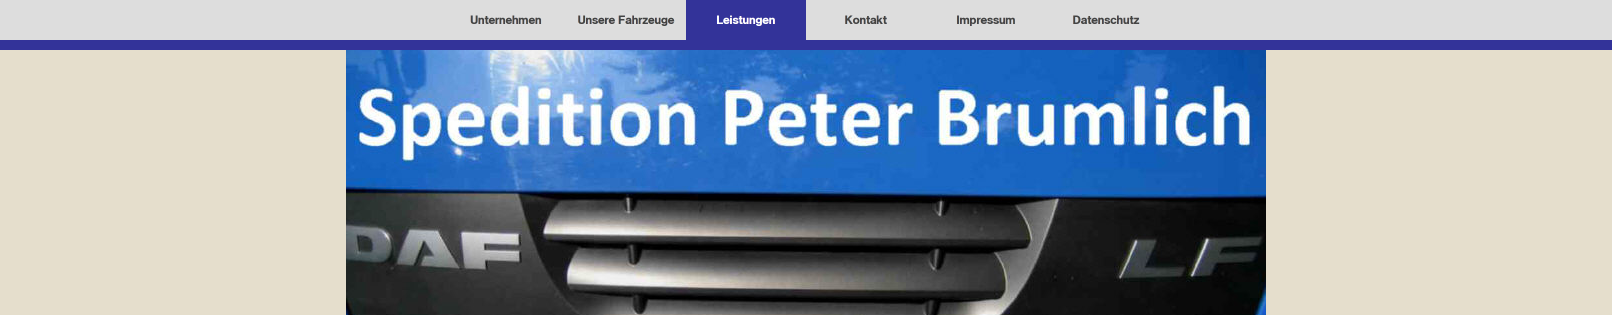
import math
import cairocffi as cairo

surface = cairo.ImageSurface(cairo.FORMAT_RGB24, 1612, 315)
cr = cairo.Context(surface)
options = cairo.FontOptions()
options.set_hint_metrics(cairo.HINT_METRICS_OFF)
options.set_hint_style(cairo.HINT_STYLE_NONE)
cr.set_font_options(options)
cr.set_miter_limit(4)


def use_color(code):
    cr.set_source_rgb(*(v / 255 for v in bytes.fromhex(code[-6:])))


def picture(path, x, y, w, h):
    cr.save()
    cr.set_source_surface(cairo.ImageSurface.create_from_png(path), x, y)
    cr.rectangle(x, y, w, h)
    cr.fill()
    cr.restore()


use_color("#dddddd")
cr.paint()
picture("img1.png", 470, 15, 72, 9)
picture("img2.png", 578, 15, 97, 11)
picture("img3.png", 686, 0, 120, 40)
picture("img4.png", 845, 15, 42, 9)
picture("img5.png", 956, 15, 59, 11)
picture("img6.png", 1073, 15, 67, 9)
use_color("#333399")
cr.rectangle(0, 40, 1612, 10)
cr.fill()
use_color("#e5decc")
cr.rectangle(0, 50, 1612, 265)
cr.fill()
picture("img7.png", 346, 50, 920, 265)
surface.write_to_png("result.png")
